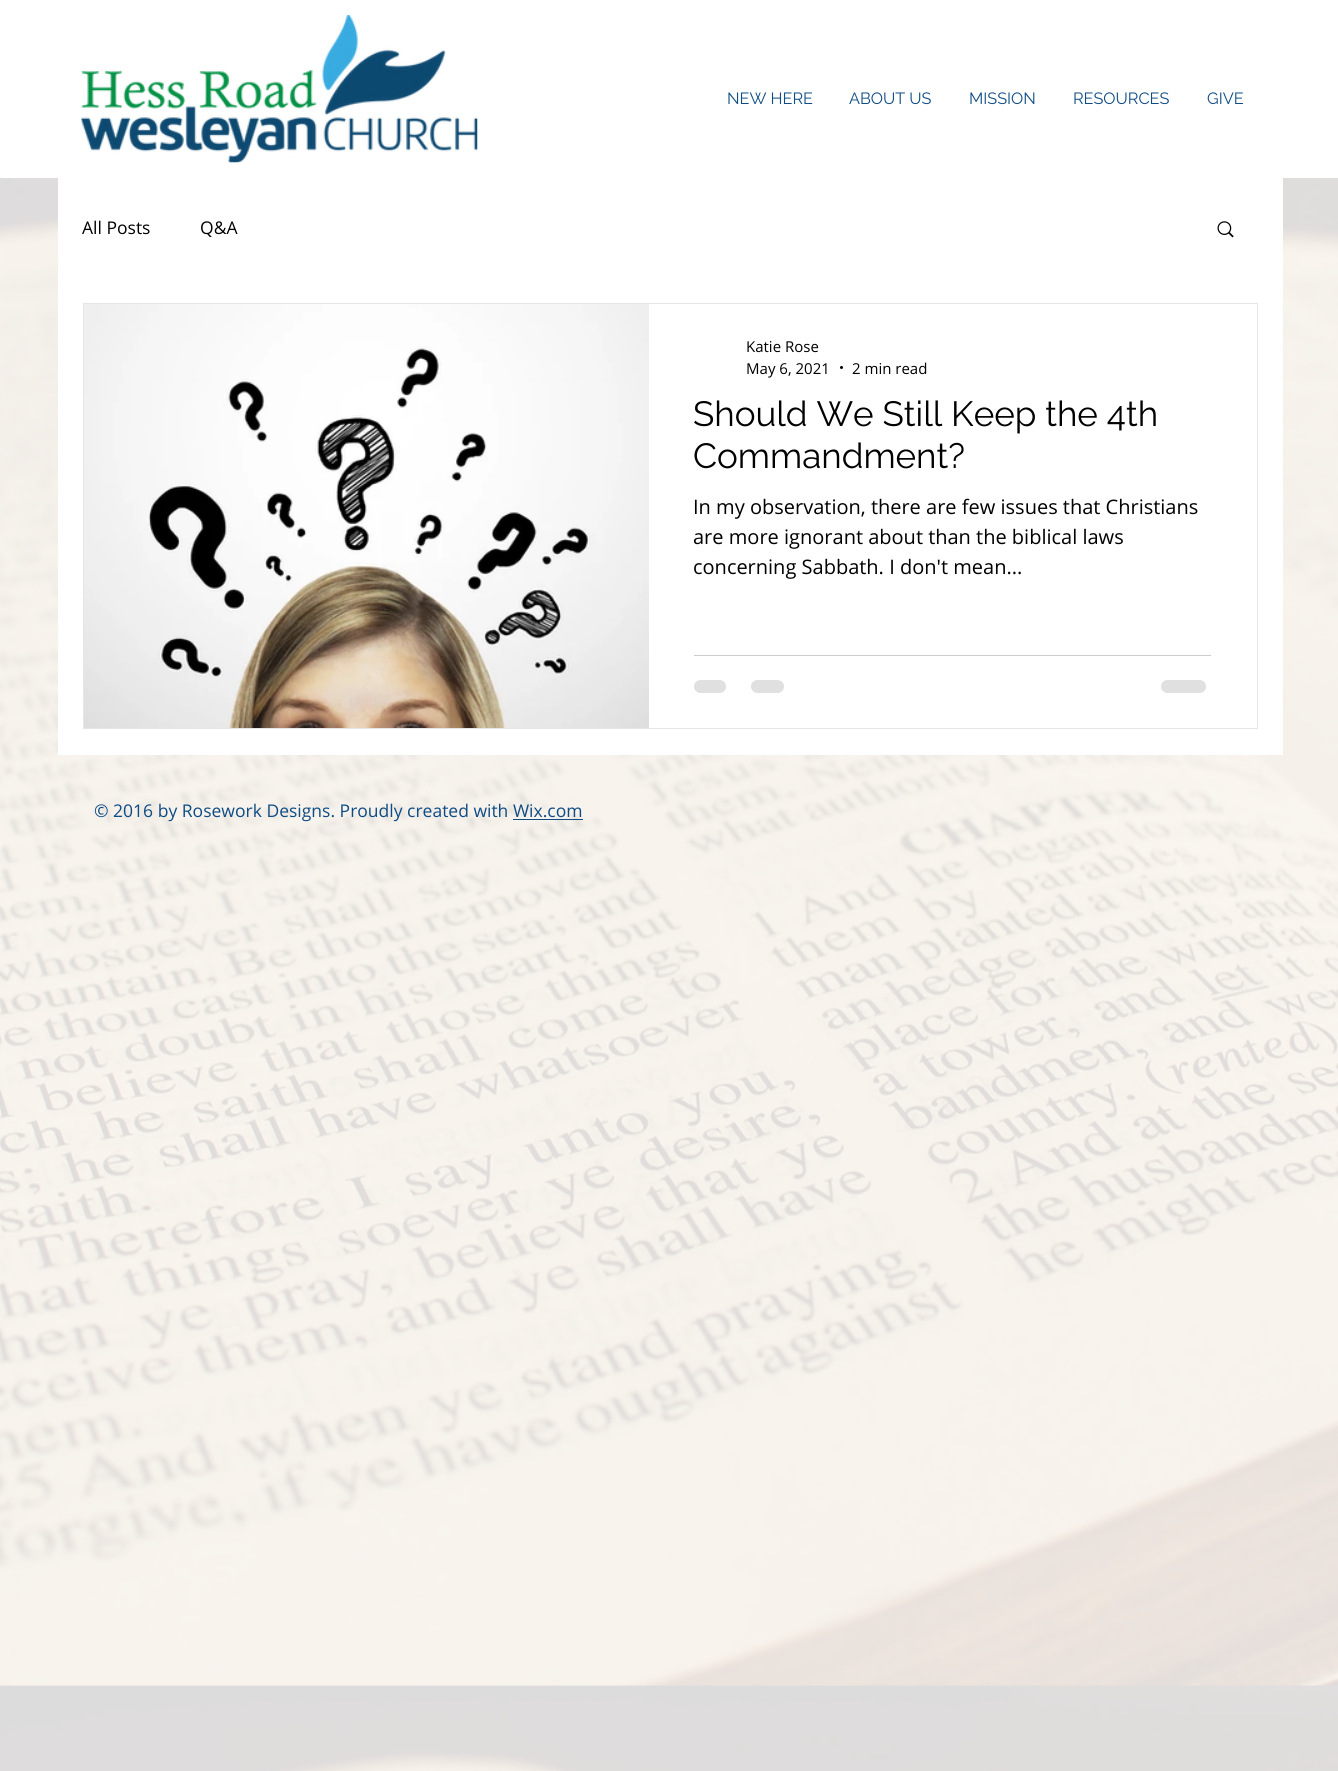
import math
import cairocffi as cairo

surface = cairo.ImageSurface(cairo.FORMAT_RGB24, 1338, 1771)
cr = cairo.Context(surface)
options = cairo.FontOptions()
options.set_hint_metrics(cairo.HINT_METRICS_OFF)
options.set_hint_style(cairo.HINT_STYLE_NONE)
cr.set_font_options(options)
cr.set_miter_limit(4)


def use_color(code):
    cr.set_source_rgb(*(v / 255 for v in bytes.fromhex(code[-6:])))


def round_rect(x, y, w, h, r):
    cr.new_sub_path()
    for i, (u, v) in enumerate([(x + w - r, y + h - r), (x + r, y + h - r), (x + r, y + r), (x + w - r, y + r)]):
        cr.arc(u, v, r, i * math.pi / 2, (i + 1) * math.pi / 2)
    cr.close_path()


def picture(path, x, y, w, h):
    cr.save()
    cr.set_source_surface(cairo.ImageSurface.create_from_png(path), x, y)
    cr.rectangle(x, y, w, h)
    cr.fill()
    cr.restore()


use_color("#ffffff")
cr.paint()
picture("img1.png", 81, 15, 397, 148)
cr.select_font_face("Raleway")
cr.set_font_size(16.25)
use_color("#0f4c85")
cr.move_to(727, 104)
cr.show_text("NEW HERE")
cr.move_to(849, 104)
cr.show_text("ABOUT US")
cr.move_to(969, 104)
cr.show_text("MISSION")
cr.move_to(1073, 104)
cr.show_text("RESOURCES")
cr.move_to(1207, 104)
cr.show_text("GIVE")
picture("img4.png", 0, 178, 1338, 1593)
use_color("#ffffff")
cr.rectangle(58, 178, 1225, 577)
cr.fill()
cr.select_font_face("Open Sans")
cr.set_font_size(17.5)
use_color("#000000")
cr.move_to(82, 234)
cr.show_text("All Posts")
cr.move_to(200, 234)
cr.show_text("Q&A")
picture("img2.png", 1217, 221, 17, 17)
cr.rectangle(83.5, 303.5, 1174, 425)
use_color("#e6e6e6")
cr.set_line_width(1)
cr.stroke()
picture("img3.png", 84, 304, 565, 424)
cr.set_font_size(15)
use_color("#000000")
cr.move_to(746, 352)
cr.show_text("Katie Rose")
cr.move_to(746, 374)
cr.show_text("May 6, 2021")
cr.new_path()
cr.arc(841.5, 367.5, 1.5, 0, 2 * math.pi)
cr.fill()
cr.move_to(852, 374)
cr.show_text("2 min read")
cr.select_font_face("Raleway")
cr.set_font_size(35)
cr.move_to(693, 426)
cr.show_text("Should We Still Keep the 4th")
cr.move_to(693, 468)
cr.show_text("Commandment?")
cr.select_font_face("Open Sans")
cr.set_font_size(20)
cr.move_to(693, 514)
cr.show_text("In my observation, there are few issues that Christians")
cr.move_to(693, 544)
cr.show_text("are more ignorant about than the biblical laws")
cr.move_to(693, 574)
cr.show_text("concerning Sabbath. I don't mean...")
use_color("#cccccc")
cr.rectangle(694, 655, 517, 1)
cr.fill()
use_color("#e0e0e0")
round_rect(694, 680, 32, 13, 6.5)
cr.fill()
round_rect(751, 680, 33, 13, 6.5)
cr.fill()
round_rect(1161, 680, 45, 13, 6.5)
cr.fill()
cr.set_font_size(17.5)
use_color("#0f4c85")
cr.move_to(94, 817)
cr.show_text("© 2016 by Rosework Designs. Proudly created with Wix.com")
cr.rectangle(513, 819, 70, 1)
cr.fill()
surface.write_to_png("result.png")
